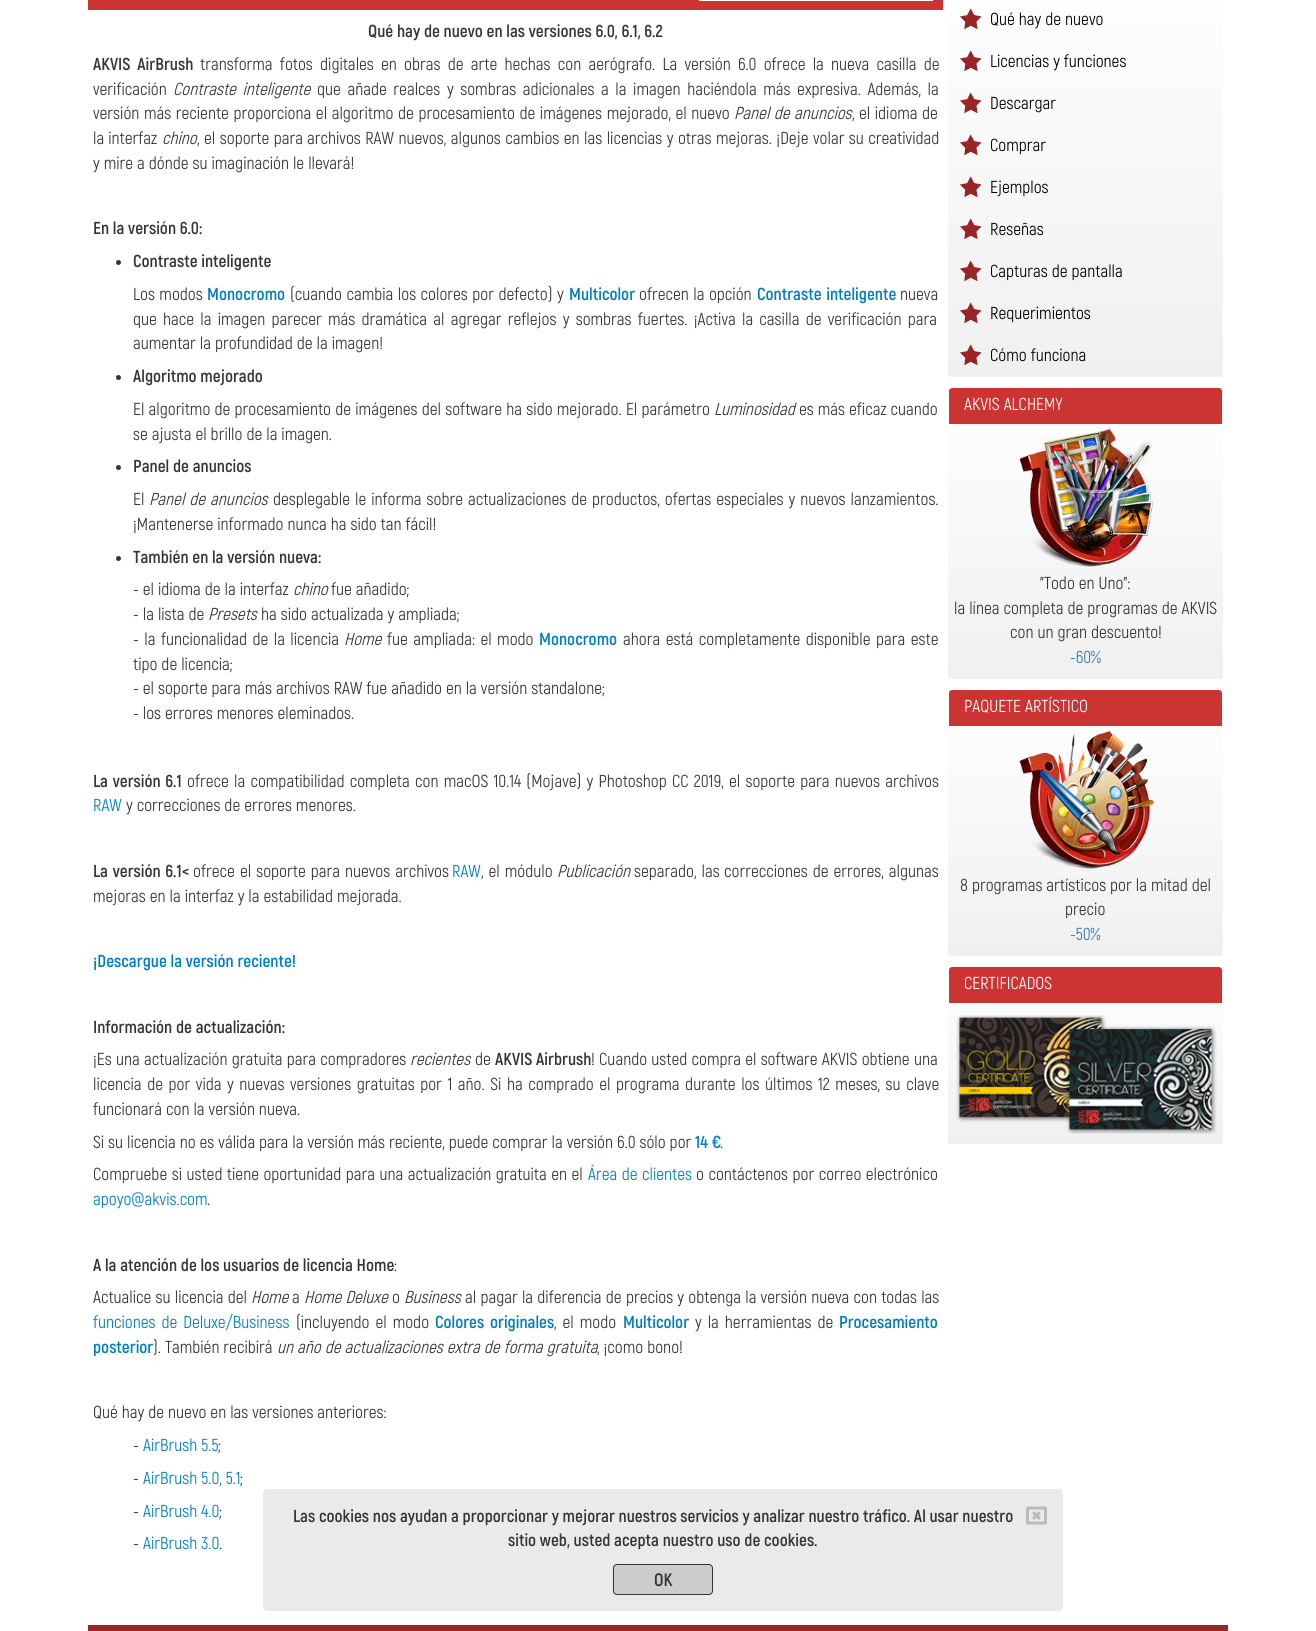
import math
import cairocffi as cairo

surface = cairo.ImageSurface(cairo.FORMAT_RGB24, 1316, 1631)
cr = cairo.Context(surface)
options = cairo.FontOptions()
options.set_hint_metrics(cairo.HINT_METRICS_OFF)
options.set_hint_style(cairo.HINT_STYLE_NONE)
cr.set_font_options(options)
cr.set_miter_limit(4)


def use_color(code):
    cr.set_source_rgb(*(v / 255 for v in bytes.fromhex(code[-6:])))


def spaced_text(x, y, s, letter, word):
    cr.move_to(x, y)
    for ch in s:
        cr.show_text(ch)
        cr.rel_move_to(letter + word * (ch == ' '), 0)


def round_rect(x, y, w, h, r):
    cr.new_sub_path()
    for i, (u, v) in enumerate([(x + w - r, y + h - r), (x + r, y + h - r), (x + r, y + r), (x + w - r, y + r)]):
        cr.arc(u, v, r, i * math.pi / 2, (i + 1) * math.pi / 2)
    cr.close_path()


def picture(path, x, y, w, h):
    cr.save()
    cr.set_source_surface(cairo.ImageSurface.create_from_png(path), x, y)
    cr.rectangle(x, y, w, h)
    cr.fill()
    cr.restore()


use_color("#ffffff")
cr.paint()
use_color("#cc3333")
cr.rectangle(88, 0, 855, 10)
cr.fill()
use_color("#ffffff")
cr.rectangle(699, 0, 234, 1)
cr.fill()
cr.select_font_face("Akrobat", cairo.FONT_SLANT_NORMAL, cairo.FONT_WEIGHT_BOLD)
cr.set_font_size(17.35)
use_color("#353535")
cr.move_to(368, 37)
cr.show_text("Qué hay de nuevo en las versiones 6.0, 6.1, 6.2")
spaced_text(93, 70, "AKVIS AirBrush", 0, 3.25)
cr.select_font_face("Akrobat")
spaced_text(200, 70, "transforma fotos digitales en obras de arte hechas con aerógrafo. La versión 6.0 ofrece la nueva casilla de", 0, 3.25)
cr.move_to(93, 95)
cr.show_text("verificación")
cr.select_font_face("Akrobat", cairo.FONT_SLANT_ITALIC)
spaced_text(173, 95, "Contraste inteligente", 0, 2.6)
cr.select_font_face("Akrobat")
spaced_text(317, 95, "que añade realces y sombras adicionales a la imagen haciéndola más expresiva. Además, la", 0, 2.6)
spaced_text(93, 119, "versión más reciente proporciona el algoritmo de procesamiento de imágenes mejorado, el nuevo", 0, 0.6)
cr.select_font_face("Akrobat", cairo.FONT_SLANT_ITALIC)
spaced_text(734, 119, "Panel de anuncios", 0, 0.5)
cr.select_font_face("Akrobat")
spaced_text(852, 119, ", el idioma de", 0, 0.5)
cr.move_to(93, 144)
cr.show_text("la interfaz")
cr.select_font_face("Akrobat", cairo.FONT_SLANT_ITALIC)
cr.move_to(162, 144)
cr.show_text("chino")
cr.select_font_face("Akrobat")
spaced_text(197, 144, ", el soporte para", 0, 0.5)
spaced_text(307, 144, "archivos RAW nuevos, algunos cambios en las licencias y otras mejoras. ¡Deje volar su creatividad", 0, 0.5)
cr.move_to(93, 169)
cr.show_text("y mire a dónde su imaginación le llevará!")
cr.select_font_face("Akrobat", cairo.FONT_SLANT_NORMAL, cairo.FONT_WEIGHT_BOLD)
cr.move_to(93, 234)
cr.show_text("En la versión 6.0:")
cr.new_path()
cr.arc(118.5, 262.5, 2.5, 0, 2 * math.pi)
cr.fill()
cr.move_to(133, 267)
cr.show_text("Contraste inteligente")
cr.select_font_face("Akrobat")
spaced_text(133, 300, "Los modos", 0, 0.5)
cr.select_font_face("Akrobat", cairo.FONT_SLANT_NORMAL, cairo.FONT_WEIGHT_BOLD)
use_color("#007ebd")
cr.move_to(207, 300)
cr.show_text("Monocromo")
cr.select_font_face("Akrobat")
use_color("#353535")
spaced_text(290, 300, "(cuando cambia los colores por defecto) y", 0, 0.5)
cr.select_font_face("Akrobat", cairo.FONT_SLANT_NORMAL, cairo.FONT_WEIGHT_BOLD)
use_color("#007ebd")
cr.move_to(569, 300)
cr.show_text("Multicolor")
cr.select_font_face("Akrobat")
use_color("#353535")
spaced_text(639, 300, "ofrecen la opción", 0, 0.5)
cr.select_font_face("Akrobat", cairo.FONT_SLANT_NORMAL, cairo.FONT_WEIGHT_BOLD)
use_color("#007ebd")
spaced_text(757, 300, "Contraste inteligente", 0, 1)
cr.select_font_face("Akrobat")
use_color("#353535")
cr.move_to(900, 300)
cr.show_text("nueva")
spaced_text(133, 325, "que hace la imagen parecer más dramática al agregar reflejos y sombras fuertes. ¡Activa la casilla de verificación para", 0, 2.25)
cr.move_to(133, 349)
cr.show_text("aumentar la profundidad de la imagen!")
cr.new_path()
cr.arc(118.5, 377.5, 2.5, 0, 2 * math.pi)
cr.fill()
cr.select_font_face("Akrobat", cairo.FONT_SLANT_NORMAL, cairo.FONT_WEIGHT_BOLD)
cr.move_to(133, 382)
cr.show_text("Algoritmo mejorado")
cr.select_font_face("Akrobat")
spaced_text(133, 415, "El algoritmo de procesamiento de imágenes del software ha sido mejorado. El parámetro", 0, 0.25)
cr.select_font_face("Akrobat", cairo.FONT_SLANT_ITALIC)
cr.move_to(714, 415)
cr.show_text("Luminosidad")
cr.select_font_face("Akrobat")
cr.move_to(799, 415)
cr.show_text("es más eficaz cuando")
cr.move_to(133, 440)
cr.show_text("se ajusta el brillo de la imagen.")
cr.new_path()
cr.arc(118.5, 467.5, 2.5, 0, 2 * math.pi)
cr.fill()
cr.select_font_face("Akrobat", cairo.FONT_SLANT_NORMAL, cairo.FONT_WEIGHT_BOLD)
cr.move_to(133, 472)
cr.show_text("Panel de anuncios")
cr.select_font_face("Akrobat")
cr.move_to(133, 505)
cr.show_text("El")
cr.select_font_face("Akrobat", cairo.FONT_SLANT_ITALIC)
spaced_text(149, 505, "Panel de anuncios", 0, 1)
cr.select_font_face("Akrobat")
spaced_text(273, 505, "desplegable le informa sobre actualizaciones de productos, ofertas especiales y nuevos lanzamientos.", 0, 1)
cr.move_to(133, 530)
cr.show_text("¡Mantenerse informado nunca ha sido tan fácil!")
cr.new_path()
cr.arc(118.5, 558.5, 2.5, 0, 2 * math.pi)
cr.fill()
cr.select_font_face("Akrobat", cairo.FONT_SLANT_NORMAL, cairo.FONT_WEIGHT_BOLD)
cr.move_to(133, 563)
cr.show_text("También en la versión nueva:")
cr.select_font_face("Akrobat")
cr.move_to(133, 595)
cr.show_text("- el idioma de la interfaz")
cr.select_font_face("Akrobat", cairo.FONT_SLANT_ITALIC)
cr.move_to(293, 595)
cr.show_text("chino")
cr.select_font_face("Akrobat")
cr.move_to(331, 595)
cr.show_text("fue añadido;")
cr.move_to(133, 620)
cr.show_text("- la lista de")
cr.select_font_face("Akrobat", cairo.FONT_SLANT_ITALIC)
cr.move_to(208, 620)
cr.show_text("Presets")
cr.select_font_face("Akrobat")
cr.move_to(261, 620)
cr.show_text("ha sido actualizada y ampliada;")
spaced_text(133, 645, "- la funcionalidad de la licencia", 0, 1.5)
cr.select_font_face("Akrobat", cairo.FONT_SLANT_ITALIC)
cr.move_to(344, 645)
cr.show_text("Home")
cr.select_font_face("Akrobat")
spaced_text(387, 645, "fue ampliada: el modo", 0, 1.5)
cr.select_font_face("Akrobat", cairo.FONT_SLANT_NORMAL, cairo.FONT_WEIGHT_BOLD)
use_color("#007ebd")
cr.move_to(539, 645)
cr.show_text("Monocromo")
cr.select_font_face("Akrobat")
use_color("#353535")
spaced_text(623, 645, "ahora está completamente disponible para este", 0, 1.5)
cr.move_to(133, 670)
cr.show_text("tipo de licencia;")
cr.move_to(133, 694)
cr.show_text("- el soporte para más archivos RAW fue añadido en la versión standalone;")
cr.move_to(133, 719)
cr.show_text("- los errores menores eleminados.")
cr.select_font_face("Akrobat", cairo.FONT_SLANT_NORMAL, cairo.FONT_WEIGHT_BOLD)
spaced_text(93, 787, "La versión 6.1", 0, 1)
cr.select_font_face("Akrobat")
spaced_text(187, 787, "ofrece la compatibilidad completa con macOS 10.14 (Mojave) y Photoshop CC 2019, el soporte para nuevos archivos", 0, 1.25)
use_color("#007ebd")
cr.move_to(93, 811)
cr.show_text("RAW")
use_color("#353535")
cr.move_to(126, 811)
cr.show_text("y correcciones de errores menores.")
cr.select_font_face("Akrobat", cairo.FONT_SLANT_NORMAL, cairo.FONT_WEIGHT_BOLD)
spaced_text(93, 877, "La versión 6.1<", 0, 1)
cr.select_font_face("Akrobat")
cr.move_to(193, 877)
cr.show_text("ofrece")
spaced_text(240, 877, "el soporte para nuevos archivos", 0, 1)
use_color("#007ebd")
cr.move_to(452, 877)
cr.show_text("RAW")
use_color("#353535")
spaced_text(481, 877, ", el módulo", 0, 1)
cr.select_font_face("Akrobat", cairo.FONT_SLANT_ITALIC)
cr.move_to(557, 877)
cr.show_text("Publicación")
cr.select_font_face("Akrobat")
spaced_text(634, 877, "separado, las", 0, 1)
spaced_text(724, 877, "correcciones de errores, algunas", 0, 1)
cr.move_to(93, 902)
cr.show_text("mejoras en la interfaz y la estabilidad mejorada.")
cr.select_font_face("Akrobat", cairo.FONT_SLANT_NORMAL, cairo.FONT_WEIGHT_BOLD)
use_color("#007ebd")
cr.move_to(93, 967)
cr.show_text("¡Descargue la versión reciente!")
use_color("#353535")
cr.move_to(93, 1033)
cr.show_text("Información de actualización:")
cr.select_font_face("Akrobat")
spaced_text(93, 1065, "¡Es una actualización gratuita para compradores", 0, 0.25)
cr.select_font_face("Akrobat", cairo.FONT_SLANT_ITALIC)
cr.move_to(410, 1065)
cr.show_text("recientes")
cr.select_font_face("Akrobat")
cr.move_to(475, 1065)
cr.show_text("de")
cr.select_font_face("Akrobat", cairo.FONT_SLANT_NORMAL, cairo.FONT_WEIGHT_BOLD)
cr.move_to(495, 1065)
cr.show_text("AKVIS Airbrush")
cr.select_font_face("Akrobat")
spaced_text(591, 1065, "! Cuando usted compra el software AKVIS obtiene una", 0, 0.25)
spaced_text(93, 1090, "licencia de por vida y nuevas versiones gratuitas por 1 año. Si ha comprado el programa durante los últimos 12 meses, su clave", 0, 1.6)
cr.move_to(93, 1115)
cr.show_text("funcionará con la versión nueva.")
cr.move_to(93, 1148)
cr.show_text("Si su licencia no es válida para la versión más reciente, puede comprar la versión 6.0 sólo por")
cr.select_font_face("Akrobat", cairo.FONT_SLANT_NORMAL, cairo.FONT_WEIGHT_BOLD)
use_color("#007ebd")
cr.move_to(695, 1148)
cr.show_text("14 €")
cr.select_font_face("Akrobat")
use_color("#353535")
cr.move_to(720, 1148)
cr.show_text(".")
spaced_text(93, 1180, "Compruebe si usted tiene oportunidad para una actualización gratuita en el", 0, 0.5)
use_color("#007ebd")
spaced_text(588, 1180, "Área de clientes", 0, 0.5)
use_color("#353535")
spaced_text(696, 1180, "o contáctenos por correo electrónico", 0, 0.5)
use_color("#007ebd")
cr.move_to(93, 1205)
cr.show_text("apoyo@akvis.com")
use_color("#353535")
cr.move_to(207, 1205)
cr.show_text(".")
cr.select_font_face("Akrobat", cairo.FONT_SLANT_NORMAL, cairo.FONT_WEIGHT_BOLD)
cr.move_to(93, 1271)
cr.show_text("A la atención de los usuarios de licencia Home")
cr.select_font_face("Akrobat")
cr.move_to(394, 1271)
cr.show_text(":")
spaced_text(93, 1303, "Actualice su licencia del", 0, 0.25)
cr.select_font_face("Akrobat", cairo.FONT_SLANT_ITALIC)
cr.move_to(251, 1303)
cr.show_text("Home")
cr.select_font_face("Akrobat")
cr.move_to(292, 1303)
cr.show_text("a")
cr.select_font_face("Akrobat", cairo.FONT_SLANT_ITALIC)
cr.move_to(304, 1303)
cr.show_text("Home Deluxe")
cr.select_font_face("Akrobat")
cr.move_to(392, 1303)
cr.show_text("o")
cr.select_font_face("Akrobat", cairo.FONT_SLANT_ITALIC)
cr.move_to(404, 1303)
cr.show_text("Business")
cr.select_font_face("Akrobat")
spaced_text(465, 1303, "al pagar la diferencia de precios y obtenga la versión nueva con todas las", 0, 0.25)
use_color("#007ebd")
spaced_text(93, 1328, "funciones de Deluxe/Business", 0, 2)
use_color("#353535")
spaced_text(296, 1328, "(incluyendo el modo", 0, 2)
cr.select_font_face("Akrobat", cairo.FONT_SLANT_NORMAL, cairo.FONT_WEIGHT_BOLD)
use_color("#007ebd")
spaced_text(435, 1328, "Colores originales", 0, 2)
cr.select_font_face("Akrobat")
use_color("#353535")
spaced_text(554, 1328, ", el modo", 0, 2)
cr.select_font_face("Akrobat", cairo.FONT_SLANT_NORMAL, cairo.FONT_WEIGHT_BOLD)
use_color("#007ebd")
cr.move_to(623, 1328)
cr.show_text("Multicolor")
cr.select_font_face("Akrobat")
use_color("#353535")
spaced_text(695, 1328, "y la herramientas de", 0, 2)
cr.select_font_face("Akrobat", cairo.FONT_SLANT_NORMAL, cairo.FONT_WEIGHT_BOLD)
use_color("#007ebd")
cr.move_to(839, 1328)
cr.show_text("Procesamiento")
cr.move_to(93, 1353)
cr.show_text("posterior")
cr.select_font_face("Akrobat")
use_color("#353535")
cr.move_to(153, 1353)
cr.show_text("). También recibirá")
cr.select_font_face("Akrobat", cairo.FONT_SLANT_ITALIC)
cr.move_to(277, 1353)
cr.show_text("un año de actualizaciones extra de forma gratuita")
cr.select_font_face("Akrobat")
cr.move_to(597, 1353)
cr.show_text(", ¡como bono!")
cr.move_to(93, 1418)
cr.show_text("Qué hay de nuevo en las versiones anteriores:")
cr.move_to(133, 1451)
cr.show_text("-")
use_color("#007ebd")
cr.move_to(143, 1451)
cr.show_text("AirBrush 5.5")
use_color("#353535")
cr.move_to(218, 1451)
cr.show_text(";")
cr.move_to(133, 1484)
cr.show_text("-")
use_color("#007ebd")
cr.move_to(143, 1484)
cr.show_text("AirBrush 5.0, 5.1")
use_color("#353535")
cr.move_to(240, 1484)
cr.show_text(";")
cr.move_to(133, 1517)
cr.show_text("-")
use_color("#007ebd")
cr.move_to(143, 1517)
cr.show_text("AirBrush 4.0")
use_color("#353535")
cr.move_to(219, 1517)
cr.show_text(";")
cr.move_to(133, 1549)
cr.show_text("-")
use_color("#007ebd")
cr.move_to(143, 1549)
cr.show_text("AirBrush 3.0")
use_color("#353535")
cr.move_to(219, 1549)
cr.show_text(".")
cr.save()
round_rect(948, -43, 275, 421, 4)
cr.clip()
gradient = cairo.LinearGradient(1086, 377, 1086, -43)
gradient.add_color_stop_rgba(0, 0.941, 0.941, 0.941, 1)
gradient.add_color_stop_rgba(1, 1, 1, 1, 1)
cr.set_source(gradient)
cr.new_path()
cr.move_to(952, -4)
cr.line_to(1219, -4)
cr.curve_to(1221, -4, 1223, -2, 1223, 0)
cr.line_to(1223, 377)
cr.line_to(948, 377)
cr.line_to(948, 0)
cr.curve_to(948, -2, 950, -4, 952, -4)
cr.close_path()
cr.fill()
cr.restore()
picture("img1.png", 960, 8, 22, 22)
use_color("#000000")
cr.move_to(990, 25)
cr.show_text("Qué hay de nuevo")
picture("img2.png", 960, 50, 22, 22)
cr.move_to(990, 67)
cr.show_text("Licencias y funciones")
picture("img3.png", 960, 92, 22, 22)
cr.move_to(990, 109)
cr.show_text("Descargar")
picture("img4.png", 960, 134, 22, 22)
cr.move_to(990, 151)
cr.show_text("Comprar")
picture("img5.png", 960, 176, 22, 22)
cr.move_to(990, 193)
cr.show_text("Ejemplos")
picture("img6.png", 960, 218, 22, 22)
cr.move_to(990, 235)
cr.show_text("Reseñas")
picture("img7.png", 960, 260, 22, 22)
cr.move_to(990, 277)
cr.show_text("Capturas de pantalla")
picture("img8.png", 960, 302, 22, 22)
cr.move_to(990, 319)
cr.show_text("Requerimientos")
picture("img9.png", 960, 344, 22, 22)
cr.move_to(990, 361)
cr.show_text("Cómo funciona")
cr.save()
round_rect(948, 388, 275, 292, 4)
cr.clip()
gradient = cairo.LinearGradient(1086, 679, 1086, 388)
gradient.add_color_stop_rgba(0, 0.941, 0.941, 0.941, 1)
gradient.add_color_stop_rgba(1, 1, 1, 1, 1)
cr.set_source(gradient)
cr.new_path()
cr.move_to(952, 388)
cr.line_to(1219, 388)
cr.curve_to(1221, 388, 1223, 390, 1223, 392)
cr.line_to(1223, 679)
cr.line_to(948, 679)
cr.line_to(948, 392)
cr.curve_to(948, 390, 950, 388, 952, 388)
cr.close_path()
cr.fill()
cr.restore()
use_color("#cc3333")
cr.new_path()
cr.move_to(952, 388)
cr.line_to(1219, 388)
cr.curve_to(1220.5, 388, 1222, 389.5, 1222, 391)
cr.line_to(1222, 424)
cr.line_to(949, 424)
cr.line_to(949, 391)
cr.curve_to(949, 389.5, 950.5, 388, 952, 388)
cr.close_path()
cr.fill()
use_color("#ffffff")
cr.move_to(964, 410)
cr.show_text("AKVIS ALCHEMY")
picture("img10.png", 1019, 428, 135, 139)
use_color("#353535")
cr.move_to(1040, 589)
cr.show_text("\"Todo en Uno\":")
cr.move_to(954, 614)
cr.show_text("la línea completa de programas de AKVIS")
cr.move_to(1010, 638)
cr.show_text("con un gran descuento!")
use_color("#337ab7")
cr.move_to(1070, 663)
cr.show_text("-60%")
cr.save()
round_rect(948, 690, 275, 267, 4)
cr.clip()
gradient = cairo.LinearGradient(1086, 956, 1086, 690)
gradient.add_color_stop_rgba(0, 0.941, 0.941, 0.941, 1)
gradient.add_color_stop_rgba(1, 1, 1, 1, 1)
cr.set_source(gradient)
cr.new_path()
cr.move_to(952, 690)
cr.line_to(1219, 690)
cr.curve_to(1221, 690, 1223, 692, 1223, 694)
cr.line_to(1223, 956)
cr.line_to(948, 956)
cr.line_to(948, 694)
cr.curve_to(948, 692, 950, 690, 952, 690)
cr.close_path()
cr.fill()
cr.restore()
use_color("#cc3333")
cr.new_path()
cr.move_to(952, 690)
cr.line_to(1219, 690)
cr.curve_to(1220.5, 690, 1222, 691.5, 1222, 693)
cr.line_to(1222, 726)
cr.line_to(949, 726)
cr.line_to(949, 693)
cr.curve_to(949, 691.5, 950.5, 690, 952, 690)
cr.close_path()
cr.fill()
use_color("#ffffff")
cr.move_to(964, 712)
cr.show_text("PAQUETE ARTÍSTICO")
picture("img11.png", 1019, 730, 135, 139)
use_color("#353535")
cr.move_to(960, 891)
cr.show_text("8 programas artísticos por la mitad del")
cr.move_to(1065, 915)
cr.show_text("precio")
use_color("#337ab7")
cr.move_to(1070, 940)
cr.show_text("-50%")
cr.save()
round_rect(948, 967, 275, 178, 4)
cr.clip()
gradient = cairo.LinearGradient(1086, 1144, 1086, 967)
gradient.add_color_stop_rgba(0, 0.941, 0.941, 0.941, 1)
gradient.add_color_stop_rgba(1, 1, 1, 1, 1)
cr.set_source(gradient)
cr.new_path()
cr.move_to(952, 967)
cr.line_to(1219, 967)
cr.curve_to(1221, 967, 1223, 969, 1223, 971)
cr.line_to(1223, 1144)
cr.line_to(948, 1144)
cr.line_to(948, 971)
cr.curve_to(948, 969, 950, 967, 952, 967)
cr.close_path()
cr.fill()
cr.restore()
use_color("#cc3333")
cr.new_path()
cr.move_to(952, 967)
cr.line_to(1219, 967)
cr.curve_to(1220.5, 967, 1222, 968.5, 1222, 970)
cr.line_to(1222, 1003)
cr.line_to(949, 1003)
cr.line_to(949, 970)
cr.curve_to(949, 968.5, 950.5, 967, 952, 967)
cr.close_path()
cr.fill()
use_color("#ffffff")
cr.move_to(964, 989)
cr.show_text("CERTIFICADOS")
picture("img12.png", 956, 1015, 261, 119)
use_color("#eaeaea")
round_rect(263, 1489, 800, 122, 4)
cr.fill()
cr.select_font_face("Akrobat", cairo.FONT_SLANT_NORMAL, cairo.FONT_WEIGHT_BOLD)
use_color("#353535")
cr.move_to(293, 1522)
cr.show_text("Las cookies nos ayudan a proporcionar y mejorar nuestros servicios y analizar nuestro tráfico. Al usar nuestro")
picture("img13.png", 1026, 1506, 21, 19)
cr.move_to(508, 1546)
cr.show_text("sitio web, usted acepta nuestro uso de cookies.")
use_color("#cdcdcd")
round_rect(613.5, 1564.5, 99, 30, 3.5)
cr.fill_preserve()
use_color("#333333")
cr.set_line_width(1)
cr.stroke()
cr.set_font_size(18)
use_color("#353535")
cr.move_to(654, 1586)
cr.show_text("OK")
use_color("#992424")
cr.rectangle(88, 1625, 1140, 6)
cr.fill()
surface.write_to_png("result.png")
